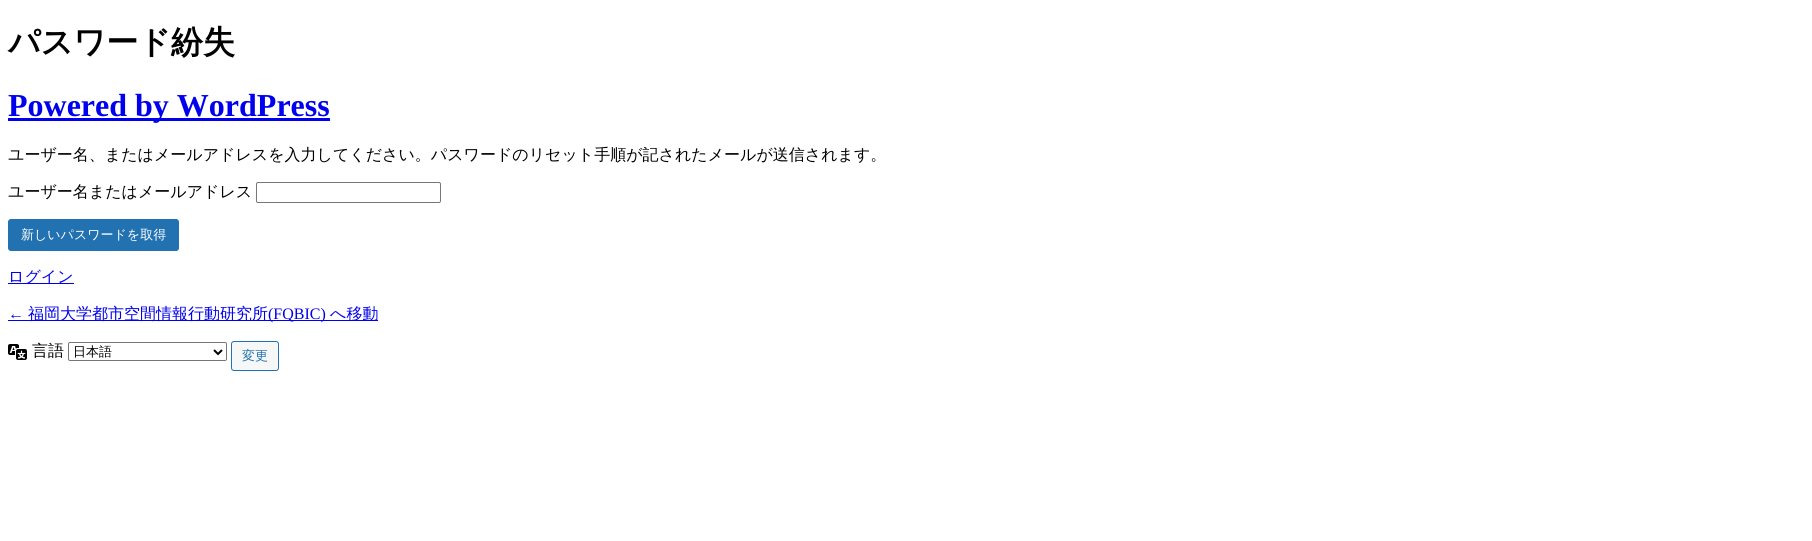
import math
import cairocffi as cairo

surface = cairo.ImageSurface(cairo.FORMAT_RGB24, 1812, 541)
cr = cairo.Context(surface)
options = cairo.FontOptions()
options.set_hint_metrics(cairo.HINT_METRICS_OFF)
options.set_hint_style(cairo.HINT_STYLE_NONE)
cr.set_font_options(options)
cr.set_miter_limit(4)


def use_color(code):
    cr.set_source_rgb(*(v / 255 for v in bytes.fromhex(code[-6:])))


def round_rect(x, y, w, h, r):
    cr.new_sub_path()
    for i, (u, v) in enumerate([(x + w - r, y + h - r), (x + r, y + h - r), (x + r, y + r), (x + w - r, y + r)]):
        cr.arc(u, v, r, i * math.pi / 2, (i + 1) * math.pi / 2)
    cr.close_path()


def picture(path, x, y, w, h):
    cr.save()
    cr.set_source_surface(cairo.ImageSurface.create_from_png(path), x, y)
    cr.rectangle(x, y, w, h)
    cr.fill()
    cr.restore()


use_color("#ffffff")
cr.paint()
cr.select_font_face("WenQuanYi Zen Hei", cairo.FONT_SLANT_NORMAL, cairo.FONT_WEIGHT_BOLD)
cr.set_font_size(32)
use_color("#000000")
cr.move_to(8, 53)
cr.show_text("パスワード紛失")
use_color("#0000ee")
cr.rectangle(8, 118, 322, 3)
cr.fill()
cr.select_font_face("Liberation Serif", cairo.FONT_SLANT_NORMAL, cairo.FONT_WEIGHT_BOLD)
cr.move_to(8, 116)
cr.show_text("Powered by WordPress")
cr.select_font_face("WenQuanYi Zen Hei Medium")
cr.set_font_size(16)
use_color("#000000")
cr.move_to(8, 160)
cr.show_text("ユーザー名、またはメールアドレスを入力してください。パスワードのリセット手順が記されたメールが送信されます。")
cr.move_to(8, 197)
cr.show_text("ユーザー名またはメールアドレス")
round_rect(256.5, 182.5, 184, 20, 1.5)
use_color("#767676")
cr.set_line_width(1)
cr.stroke()
use_color("#2271b1")
round_rect(8.5, 219.5, 170, 31, 2.5)
cr.fill_preserve()
cr.stroke()
cr.set_font_size(13)
use_color("#ffffff")
cr.move_to(21, 239)
cr.show_text("新しいパスワードを取得")
use_color("#0000ee")
cr.rectangle(8, 283, 66, 1)
cr.fill()
cr.set_font_size(16)
cr.move_to(8, 282)
cr.show_text("ログイン")
cr.select_font_face("Liberation Serif")
cr.move_to(8, 319)
cr.show_text("←")
cr.rectangle(8, 320, 370, 1)
cr.fill()
cr.select_font_face("WenQuanYi Zen Hei Medium")
cr.move_to(28, 319)
cr.show_text("福岡大学都市空間情報行動研究所")
cr.select_font_face("Liberation Serif")
cr.move_to(268, 319)
cr.show_text("(FQBIC)")
cr.select_font_face("WenQuanYi Zen Hei Medium")
cr.move_to(330, 319)
cr.show_text("へ移動")
picture("img1.png", 8, 344, 19, 16)
use_color("#000000")
cr.move_to(32, 356)
cr.show_text("言語")
round_rect(68.5, 342.5, 158, 18, 1.5)
use_color("#767676")
cr.stroke()
cr.new_path()
cr.move_to(214, 350)
cr.line_to(218, 354)
cr.line_to(222, 350)
use_color("#000000")
cr.set_line_width(2)
cr.stroke()
cr.set_font_size(13)
cr.move_to(73, 356)
cr.show_text("日本語")
use_color("#f6f7f7")
round_rect(231.5, 341.5, 47, 29, 2.5)
cr.fill_preserve()
use_color("#2271b1")
cr.set_line_width(1)
cr.stroke()
cr.move_to(242, 360)
cr.show_text("変更")
surface.write_to_png("result.png")
